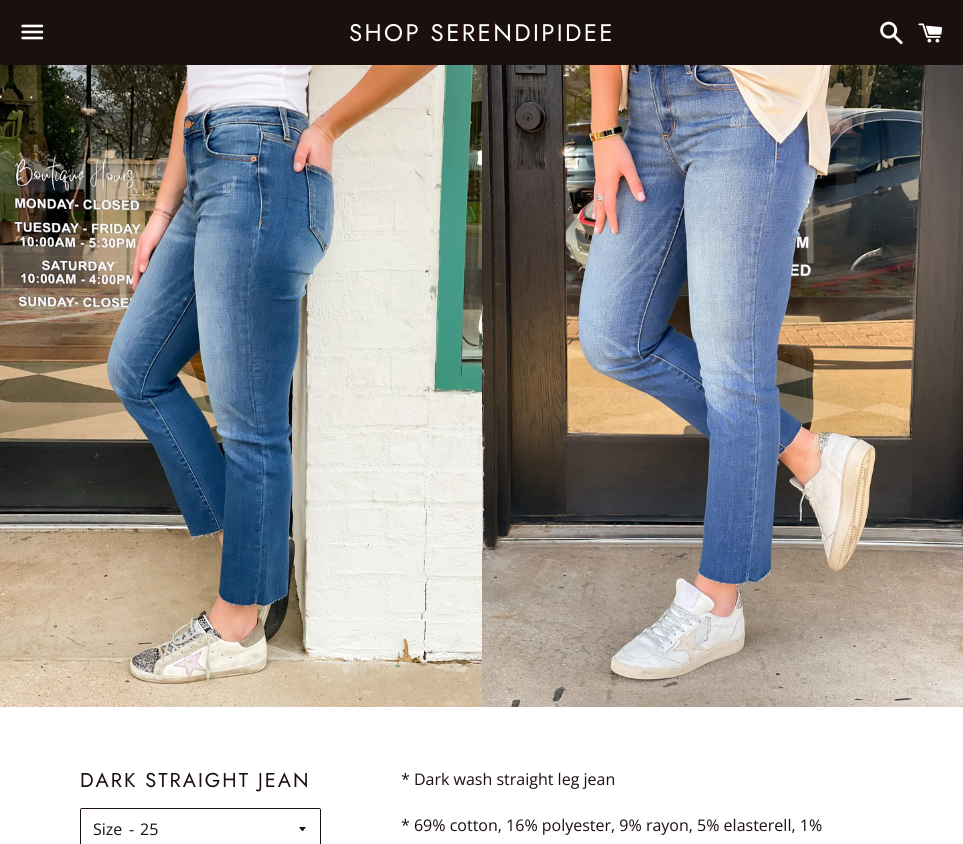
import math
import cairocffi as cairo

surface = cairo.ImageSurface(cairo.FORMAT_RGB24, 963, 844)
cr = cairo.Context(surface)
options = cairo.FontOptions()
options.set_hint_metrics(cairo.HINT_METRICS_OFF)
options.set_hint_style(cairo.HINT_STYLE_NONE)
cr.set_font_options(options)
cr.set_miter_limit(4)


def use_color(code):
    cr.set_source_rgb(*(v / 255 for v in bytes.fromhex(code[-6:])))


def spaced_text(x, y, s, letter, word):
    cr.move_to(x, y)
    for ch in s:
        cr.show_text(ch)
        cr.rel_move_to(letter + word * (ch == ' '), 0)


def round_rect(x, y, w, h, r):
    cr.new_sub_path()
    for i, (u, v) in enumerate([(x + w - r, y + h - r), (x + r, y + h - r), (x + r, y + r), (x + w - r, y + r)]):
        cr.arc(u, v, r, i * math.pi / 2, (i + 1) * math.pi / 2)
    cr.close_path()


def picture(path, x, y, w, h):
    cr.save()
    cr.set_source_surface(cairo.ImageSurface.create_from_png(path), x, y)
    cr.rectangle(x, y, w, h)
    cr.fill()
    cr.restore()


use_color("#ffffff")
cr.paint()
use_color("#1b100e")
cr.rectangle(0, 0, 963, 65)
cr.fill()
picture("img1.png", 21, 24, 23, 16)
cr.select_font_face("Jost")
cr.set_font_size(24)
use_color("#ffffff")
spaced_text(349, 41, "SHOP SERENDIPIDEE", 2.4, 0)
picture("img2.png", 880, 21, 23, 24)
picture("img3.png", 918, 23, 25, 20)
picture("img4.png", 0, 65, 482, 642)
picture("img5.png", 482, 65, 481, 642)
cr.set_font_size(20)
use_color("#1b100e")
spaced_text(80, 787, "DARK STRAIGHT JEAN", 2, 0)
round_rect(80.5, 808.5, 240, 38, 1.5)
cr.set_line_width(1)
cr.stroke()
cr.select_font_face("Open Sans")
cr.set_font_size(16)
cr.move_to(93, 835)
cr.show_text("Size")
cr.move_to(129, 835)
cr.show_text("-")
cr.new_path()
cr.move_to(299, 827)
cr.curve_to(303.5, 832.5, 301.5, 832.5, 306, 827)
cr.close_path()
cr.fill()
cr.move_to(140, 835)
cr.show_text("25")
cr.move_to(401, 785)
cr.show_text("* Dark wash straight leg jean")
cr.move_to(401, 831)
cr.show_text("* 69% cotton, 16% polyester, 9% rayon, 5% elasterell, 1%")
surface.write_to_png("result.png")
